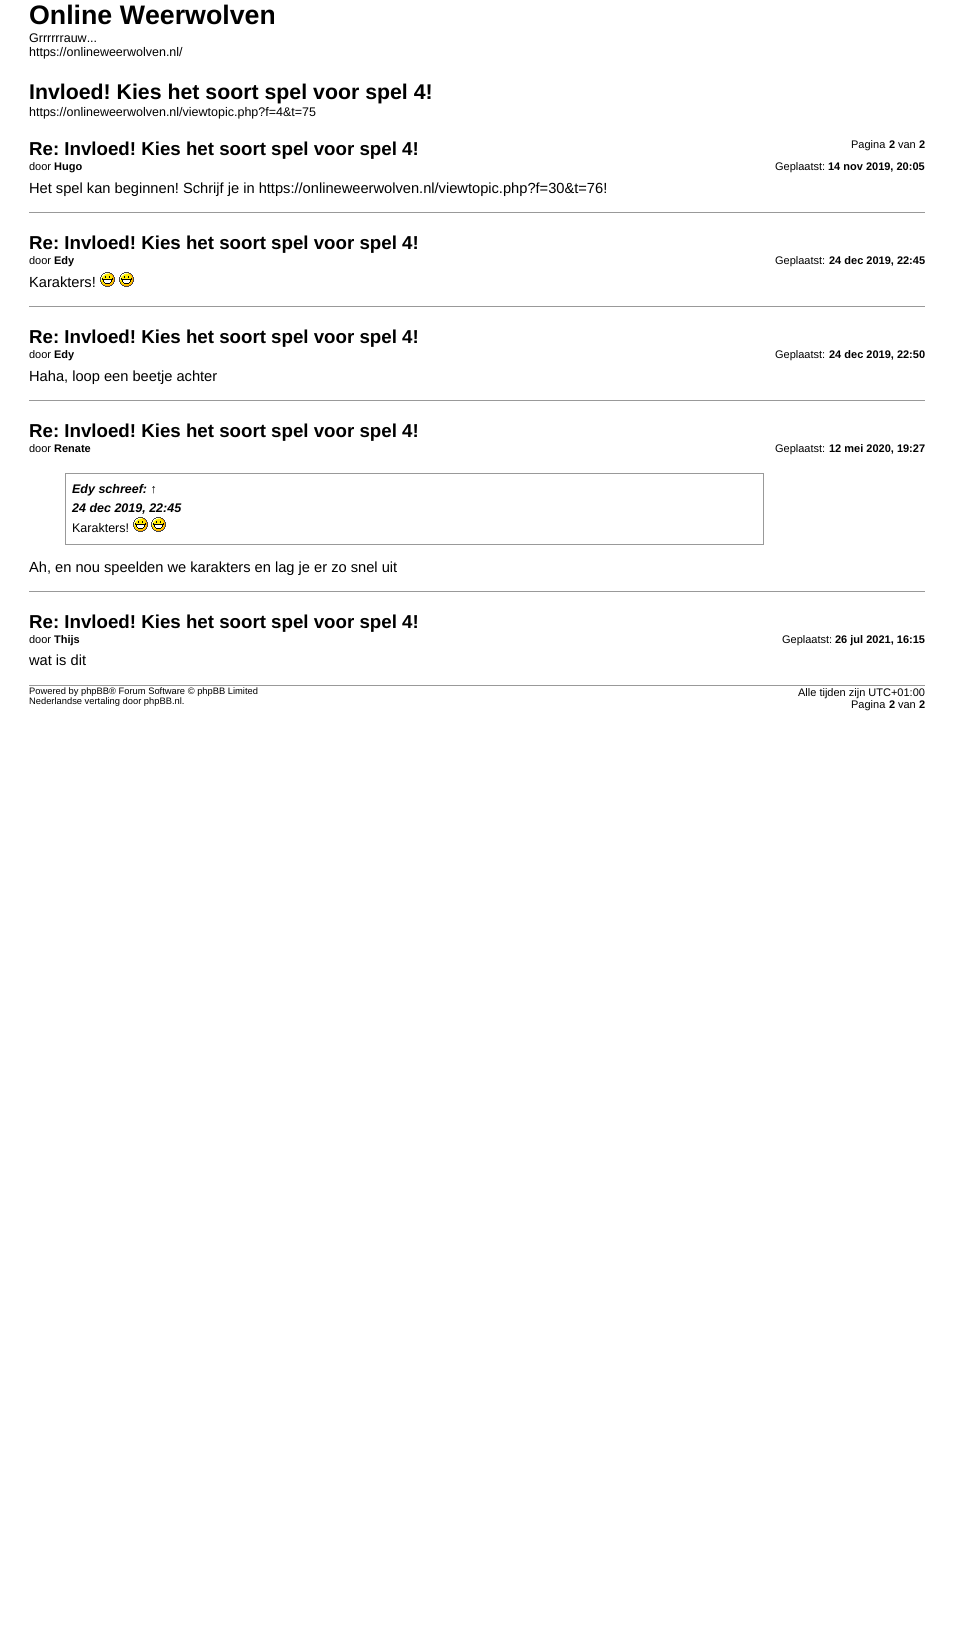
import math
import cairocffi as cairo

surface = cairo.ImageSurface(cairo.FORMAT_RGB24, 954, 1643)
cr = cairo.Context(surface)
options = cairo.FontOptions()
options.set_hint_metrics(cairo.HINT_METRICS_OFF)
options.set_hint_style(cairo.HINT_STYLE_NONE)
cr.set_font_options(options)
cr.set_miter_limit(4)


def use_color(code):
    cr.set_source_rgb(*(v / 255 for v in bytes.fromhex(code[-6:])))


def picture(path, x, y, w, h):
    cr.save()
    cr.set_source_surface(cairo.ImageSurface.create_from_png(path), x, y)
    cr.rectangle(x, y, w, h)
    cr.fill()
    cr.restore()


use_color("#ffffff")
cr.paint()
cr.select_font_face("Liberation Sans", cairo.FONT_SLANT_NORMAL, cairo.FONT_WEIGHT_BOLD)
cr.set_font_size(26.75)
use_color("#000000")
cr.move_to(29, 24)
cr.show_text("Online Weerwolven")
cr.select_font_face("Liberation Sans")
cr.set_font_size(12.5)
cr.move_to(29, 42)
cr.show_text("Grrrrrrauw...")
cr.move_to(29, 56)
cr.show_text("https://onlineweerwolven.nl/")
cr.select_font_face("Liberation Sans", cairo.FONT_SLANT_NORMAL, cairo.FONT_WEIGHT_BOLD)
cr.set_font_size(21.3)
cr.move_to(29, 99)
cr.show_text("Invloed! Kies het soort spel voor spel 4!")
cr.select_font_face("Liberation Sans")
cr.set_font_size(12.5)
cr.move_to(29, 116)
cr.show_text("https://onlineweerwolven.nl/viewtopic.php?f=4&t=75")
cr.set_font_size(11)
cr.move_to(851, 148)
cr.show_text("Pagina")
cr.select_font_face("Liberation Sans", cairo.FONT_SLANT_NORMAL, cairo.FONT_WEIGHT_BOLD)
cr.move_to(889, 148)
cr.show_text("2")
cr.select_font_face("Liberation Sans")
cr.move_to(898, 148)
cr.show_text("van")
cr.select_font_face("Liberation Sans", cairo.FONT_SLANT_NORMAL, cairo.FONT_WEIGHT_BOLD)
cr.move_to(919, 148)
cr.show_text("2")
cr.set_font_size(18.7)
cr.move_to(29, 155)
cr.show_text("Re: Invloed! Kies het soort spel voor spel 4!")
cr.select_font_face("Liberation Sans")
cr.set_font_size(11)
cr.move_to(29, 170)
cr.show_text("door")
cr.select_font_face("Liberation Sans", cairo.FONT_SLANT_NORMAL, cairo.FONT_WEIGHT_BOLD)
cr.move_to(54, 170)
cr.show_text("Hugo")
cr.select_font_face("Liberation Sans")
cr.move_to(775, 170)
cr.show_text("Geplaatst:")
cr.select_font_face("Liberation Sans", cairo.FONT_SLANT_NORMAL, cairo.FONT_WEIGHT_BOLD)
cr.move_to(828, 170)
cr.show_text("14 nov 2019, 20:05")
cr.select_font_face("Liberation Sans")
cr.set_font_size(14.65)
cr.move_to(29, 193)
cr.show_text("Het spel kan beginnen! Schrijf je in https://onlineweerwolven.nl/viewtopic.php?f=30&t=76!")
use_color("#999999")
cr.rectangle(29, 212, 896, 1)
cr.fill()
cr.select_font_face("Liberation Sans", cairo.FONT_SLANT_NORMAL, cairo.FONT_WEIGHT_BOLD)
cr.set_font_size(18.7)
use_color("#000000")
cr.move_to(29, 249)
cr.show_text("Re: Invloed! Kies het soort spel voor spel 4!")
cr.select_font_face("Liberation Sans")
cr.set_font_size(11)
cr.move_to(29, 264)
cr.show_text("door")
cr.select_font_face("Liberation Sans", cairo.FONT_SLANT_NORMAL, cairo.FONT_WEIGHT_BOLD)
cr.move_to(54, 264)
cr.show_text("Edy")
cr.select_font_face("Liberation Sans")
cr.move_to(775, 264)
cr.show_text("Geplaatst:")
cr.select_font_face("Liberation Sans", cairo.FONT_SLANT_NORMAL, cairo.FONT_WEIGHT_BOLD)
cr.move_to(829, 264)
cr.show_text("24 dec 2019, 22:45")
cr.select_font_face("Liberation Sans")
cr.set_font_size(14.65)
cr.move_to(29, 287)
cr.show_text("Karakters!")
picture("img1.png", 100, 272, 15, 15)
picture("img1.png", 119, 272, 15, 15)
use_color("#999999")
cr.rectangle(29, 306, 896, 1)
cr.fill()
cr.select_font_face("Liberation Sans", cairo.FONT_SLANT_NORMAL, cairo.FONT_WEIGHT_BOLD)
cr.set_font_size(18.7)
use_color("#000000")
cr.move_to(29, 343)
cr.show_text("Re: Invloed! Kies het soort spel voor spel 4!")
cr.select_font_face("Liberation Sans")
cr.set_font_size(11)
cr.move_to(29, 358)
cr.show_text("door")
cr.select_font_face("Liberation Sans", cairo.FONT_SLANT_NORMAL, cairo.FONT_WEIGHT_BOLD)
cr.move_to(54, 358)
cr.show_text("Edy")
cr.select_font_face("Liberation Sans")
cr.move_to(775, 358)
cr.show_text("Geplaatst:")
cr.select_font_face("Liberation Sans", cairo.FONT_SLANT_NORMAL, cairo.FONT_WEIGHT_BOLD)
cr.move_to(829, 358)
cr.show_text("24 dec 2019, 22:50")
cr.select_font_face("Liberation Sans")
cr.set_font_size(14.65)
cr.move_to(29, 381)
cr.show_text("Haha, loop een beetje achter")
use_color("#999999")
cr.rectangle(29, 400, 896, 1)
cr.fill()
cr.select_font_face("Liberation Sans", cairo.FONT_SLANT_NORMAL, cairo.FONT_WEIGHT_BOLD)
cr.set_font_size(18.7)
use_color("#000000")
cr.move_to(29, 437)
cr.show_text("Re: Invloed! Kies het soort spel voor spel 4!")
cr.select_font_face("Liberation Sans")
cr.set_font_size(11)
cr.move_to(29, 452)
cr.show_text("door")
cr.select_font_face("Liberation Sans", cairo.FONT_SLANT_NORMAL, cairo.FONT_WEIGHT_BOLD)
cr.move_to(54, 452)
cr.show_text("Renate")
cr.select_font_face("Liberation Sans")
cr.move_to(775, 452)
cr.show_text("Geplaatst:")
cr.select_font_face("Liberation Sans", cairo.FONT_SLANT_NORMAL, cairo.FONT_WEIGHT_BOLD)
cr.move_to(829, 452)
cr.show_text("12 mei 2020, 19:27")
cr.rectangle(65.5, 473.5, 698, 71)
use_color("#999999")
cr.set_line_width(1)
cr.stroke()
cr.select_font_face("Liberation Sans", cairo.FONT_SLANT_ITALIC, cairo.FONT_WEIGHT_BOLD)
cr.set_font_size(12.5)
use_color("#000000")
cr.move_to(72, 493)
cr.show_text("Edy schreef: ↑")
cr.move_to(72, 512)
cr.show_text("24 dec 2019, 22:45")
cr.select_font_face("Liberation Sans")
cr.move_to(72, 532)
cr.show_text("Karakters!")
picture("img1.png", 133, 517, 15, 15)
picture("img1.png", 151, 517, 15, 15)
cr.set_font_size(14.65)
cr.move_to(29, 572)
cr.show_text("Ah, en nou speelden we karakters en lag je er zo snel uit")
use_color("#999999")
cr.rectangle(29, 591, 896, 1)
cr.fill()
cr.select_font_face("Liberation Sans", cairo.FONT_SLANT_NORMAL, cairo.FONT_WEIGHT_BOLD)
cr.set_font_size(18.7)
use_color("#000000")
cr.move_to(29, 628)
cr.show_text("Re: Invloed! Kies het soort spel voor spel 4!")
cr.select_font_face("Liberation Sans")
cr.set_font_size(11)
cr.move_to(29, 643)
cr.show_text("door")
cr.select_font_face("Liberation Sans", cairo.FONT_SLANT_NORMAL, cairo.FONT_WEIGHT_BOLD)
cr.move_to(54, 643)
cr.show_text("Thijs")
cr.select_font_face("Liberation Sans")
cr.move_to(782, 643)
cr.show_text("Geplaatst:")
cr.select_font_face("Liberation Sans", cairo.FONT_SLANT_NORMAL, cairo.FONT_WEIGHT_BOLD)
cr.move_to(835, 643)
cr.show_text("26 jul 2021, 16:15")
cr.select_font_face("Liberation Sans")
cr.set_font_size(14.65)
cr.move_to(29, 665)
cr.show_text("wat is dit")
use_color("#999999")
cr.rectangle(29, 685, 896, 1)
cr.fill()
cr.set_font_size(9.35)
use_color("#000000")
cr.move_to(29, 694)
cr.show_text("Powered by phpBB® Forum Software © phpBB Limited")
cr.move_to(29, 704)
cr.show_text("Nederlandse vertaling door phpBB.nl.")
cr.set_font_size(11)
cr.move_to(798, 696)
cr.show_text("Alle tijden zijn UTC+01:00")
cr.move_to(851, 708)
cr.show_text("Pagina")
cr.select_font_face("Liberation Sans", cairo.FONT_SLANT_NORMAL, cairo.FONT_WEIGHT_BOLD)
cr.move_to(889, 708)
cr.show_text("2")
cr.select_font_face("Liberation Sans")
cr.move_to(898, 708)
cr.show_text("van")
cr.select_font_face("Liberation Sans", cairo.FONT_SLANT_NORMAL, cairo.FONT_WEIGHT_BOLD)
cr.move_to(919, 708)
cr.show_text("2")
surface.write_to_png("result.png")
